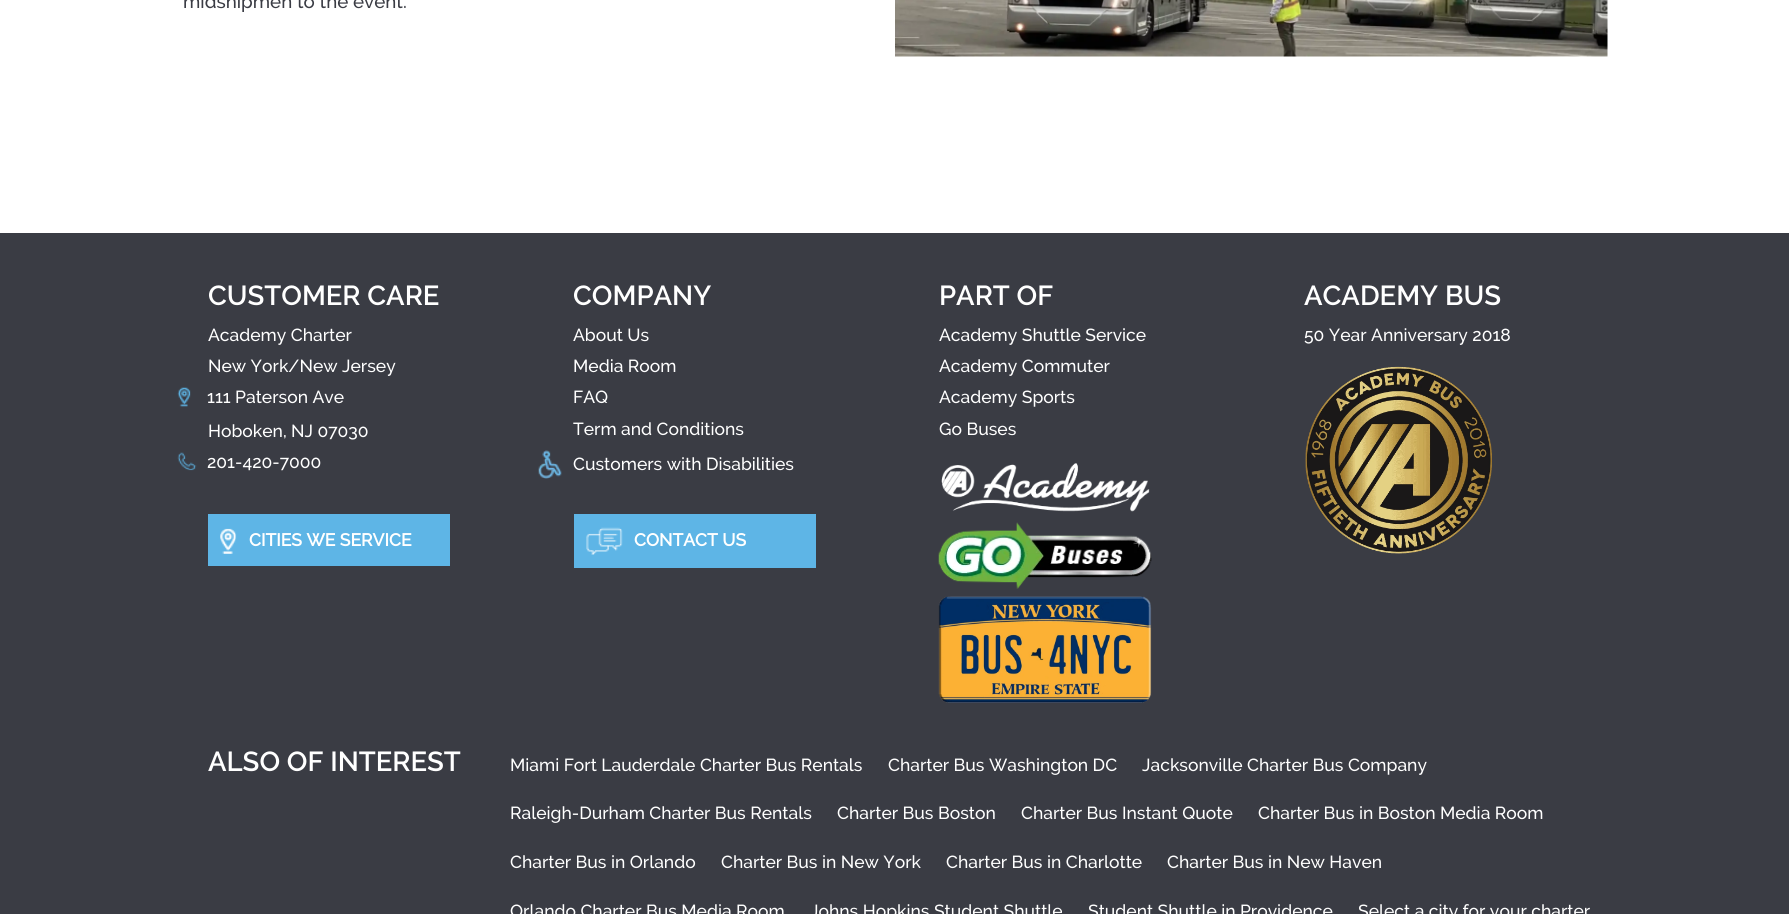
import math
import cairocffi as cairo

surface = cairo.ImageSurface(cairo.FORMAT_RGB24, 1789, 914)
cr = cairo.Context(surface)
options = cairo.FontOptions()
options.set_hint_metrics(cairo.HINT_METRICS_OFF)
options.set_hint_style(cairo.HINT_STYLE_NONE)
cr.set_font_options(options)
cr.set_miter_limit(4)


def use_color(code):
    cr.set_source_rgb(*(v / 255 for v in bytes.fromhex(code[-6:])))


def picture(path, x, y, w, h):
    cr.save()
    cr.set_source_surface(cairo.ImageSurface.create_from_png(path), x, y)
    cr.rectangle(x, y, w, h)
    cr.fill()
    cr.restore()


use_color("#3a3c44")
cr.paint()
use_color("#ffffff")
cr.rectangle(0, 0, 1789, 233)
cr.fill()
cr.select_font_face("Raleway Medium")
cr.set_font_size(18.75)
use_color("#3a3c44")
cr.move_to(183, 8)
cr.show_text("midshipmen to the event.")
picture("img1.png", 895, 0, 713, 57)
cr.select_font_face("Raleway SemiBold")
cr.set_font_size(27.5)
use_color("#ffffff")
cr.move_to(208, 305)
cr.show_text("CUSTOMER CARE")
cr.select_font_face("Raleway Medium")
cr.set_font_size(17.5)
cr.move_to(208, 341)
cr.show_text("Academy Charter")
cr.move_to(208, 372)
cr.show_text("New York/New Jersey")
picture("img2.png", 177, 387, 14, 20)
cr.move_to(207, 403)
cr.show_text("111 Paterson Ave")
cr.move_to(208, 437)
cr.show_text("Hoboken, NJ 07030")
picture("img3.png", 177, 452, 20, 19)
cr.move_to(207, 468)
cr.show_text("201-420-7000")
use_color("#5eb5e6")
cr.rectangle(208, 514, 242, 52)
cr.fill()
picture("img4.png", 220, 528, 17, 26)
cr.select_font_face("Raleway", cairo.FONT_SLANT_NORMAL, cairo.FONT_WEIGHT_BOLD)
use_color("#ffffff")
cr.move_to(249, 546)
cr.show_text("CITIES WE SERVICE")
cr.select_font_face("Raleway SemiBold")
cr.set_font_size(27.5)
cr.move_to(573, 305)
cr.show_text("COMPANY")
cr.select_font_face("Raleway Medium")
cr.set_font_size(17.5)
cr.move_to(573, 341)
cr.show_text("About Us")
cr.move_to(573, 372)
cr.show_text("Media Room")
cr.move_to(573, 403)
cr.show_text("FAQ")
cr.move_to(573, 435)
cr.show_text("Term and Conditions")
picture("img5.png", 538, 450, 24, 29)
cr.move_to(573, 470)
cr.show_text("Customers with Disabilities")
use_color("#5eb5e6")
cr.rectangle(574, 514, 242, 54)
cr.fill()
picture("img6.png", 586, 527, 37, 28)
cr.select_font_face("Raleway", cairo.FONT_SLANT_NORMAL, cairo.FONT_WEIGHT_BOLD)
use_color("#ffffff")
cr.move_to(634, 546)
cr.show_text("CONTACT US")
cr.select_font_face("Raleway SemiBold")
cr.set_font_size(27.5)
cr.move_to(939, 305)
cr.show_text("PART OF")
cr.select_font_face("Raleway Medium")
cr.set_font_size(17.5)
cr.move_to(939, 341)
cr.show_text("Academy Shuttle Service")
cr.move_to(939, 372)
cr.show_text("Academy Commuter")
cr.move_to(939, 403)
cr.show_text("Academy Sports")
cr.move_to(939, 435)
cr.show_text("Go Buses")
picture("img7.png", 941, 463, 209, 49)
picture("img8.png", 938, 522, 214, 67)
picture("img9.png", 938, 596, 214, 107)
cr.select_font_face("Raleway SemiBold")
cr.set_font_size(27.5)
cr.move_to(1304, 305)
cr.show_text("ACADEMY BUS")
cr.select_font_face("Raleway Medium")
cr.set_font_size(17.5)
cr.move_to(1304, 341)
cr.show_text("50 Year Anniversary 2018")
picture("img10.png", 1305, 366, 187, 188)
cr.select_font_face("Raleway SemiBold")
cr.set_font_size(27.5)
cr.move_to(208, 771)
cr.show_text("ALSO OF INTEREST")
cr.select_font_face("Raleway Medium")
cr.set_font_size(17.5)
cr.move_to(510, 771)
cr.show_text("Miami Fort Lauderdale Charter Bus Rentals")
cr.move_to(888, 771)
cr.show_text("Charter Bus Washington DC")
cr.move_to(1142, 771)
cr.show_text("Jacksonville Charter Bus Company")
cr.move_to(510, 819)
cr.show_text("Raleigh-Durham Charter Bus Rentals")
cr.move_to(837, 819)
cr.show_text("Charter Bus Boston")
cr.move_to(1021, 819)
cr.show_text("Charter Bus Instant Quote")
cr.move_to(1258, 819)
cr.show_text("Charter Bus in Boston Media Room")
cr.move_to(510, 868)
cr.show_text("Charter Bus in Orlando")
cr.move_to(721, 868)
cr.show_text("Charter Bus in New York")
cr.move_to(946, 868)
cr.show_text("Charter Bus in Charlotte")
cr.move_to(1167, 868)
cr.show_text("Charter Bus in New Haven")
cr.move_to(510, 917)
cr.show_text("Orlando Charter Bus Media Room")
cr.move_to(810, 917)
cr.show_text("Johns Hopkins Student Shuttle")
cr.move_to(1088, 917)
cr.show_text("Student Shuttle in Providence")
cr.move_to(1358, 917)
cr.show_text("Select a city for your charter")
surface.write_to_png("result.png")
